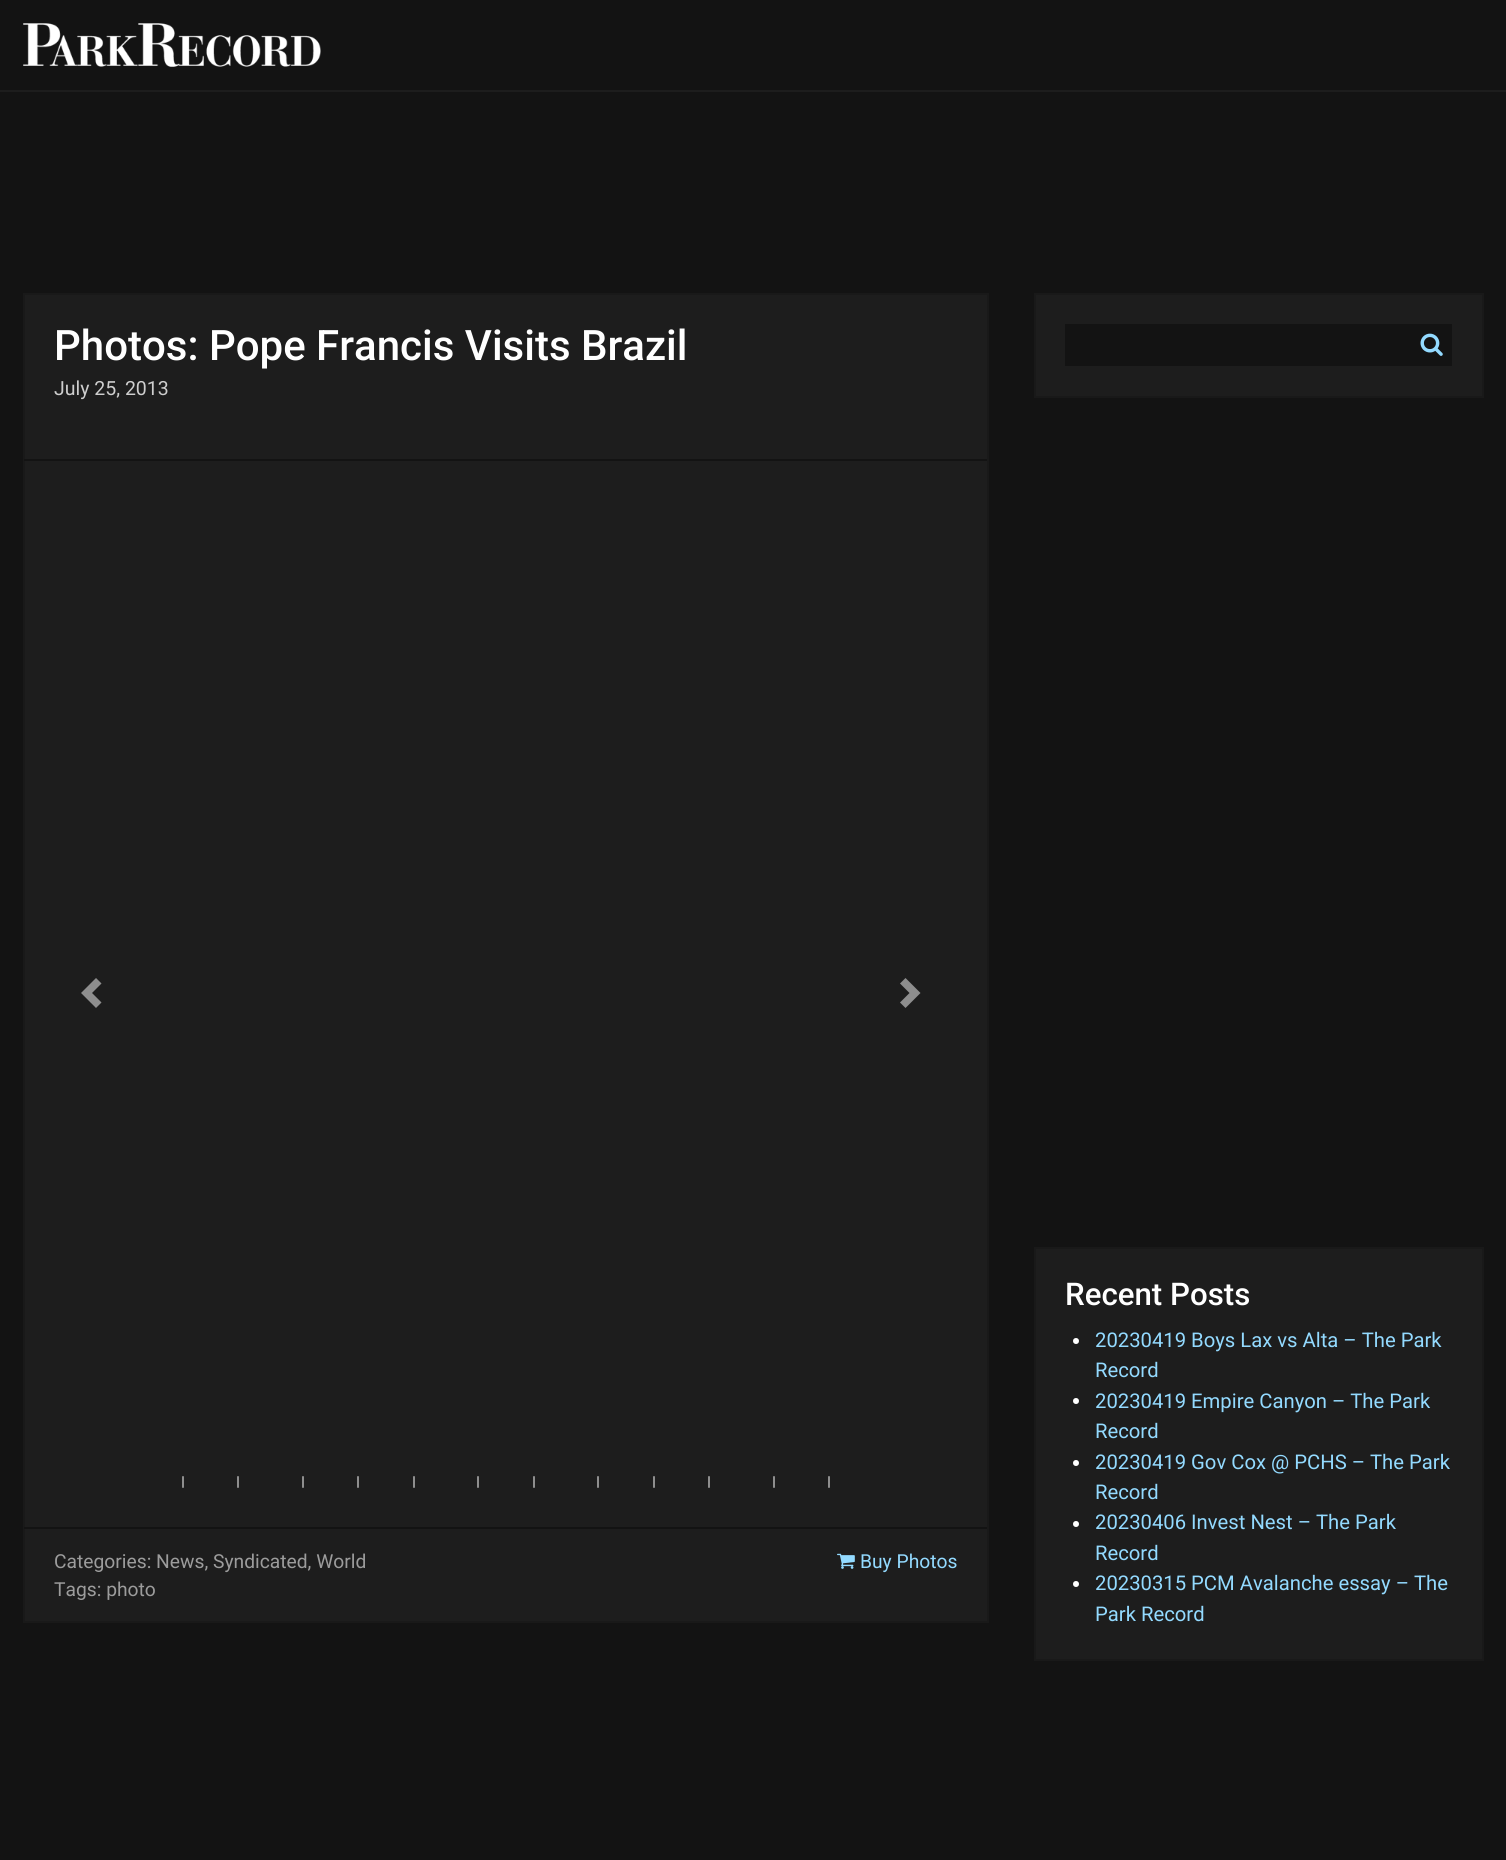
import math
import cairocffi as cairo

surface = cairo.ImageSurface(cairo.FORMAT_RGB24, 1506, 1860)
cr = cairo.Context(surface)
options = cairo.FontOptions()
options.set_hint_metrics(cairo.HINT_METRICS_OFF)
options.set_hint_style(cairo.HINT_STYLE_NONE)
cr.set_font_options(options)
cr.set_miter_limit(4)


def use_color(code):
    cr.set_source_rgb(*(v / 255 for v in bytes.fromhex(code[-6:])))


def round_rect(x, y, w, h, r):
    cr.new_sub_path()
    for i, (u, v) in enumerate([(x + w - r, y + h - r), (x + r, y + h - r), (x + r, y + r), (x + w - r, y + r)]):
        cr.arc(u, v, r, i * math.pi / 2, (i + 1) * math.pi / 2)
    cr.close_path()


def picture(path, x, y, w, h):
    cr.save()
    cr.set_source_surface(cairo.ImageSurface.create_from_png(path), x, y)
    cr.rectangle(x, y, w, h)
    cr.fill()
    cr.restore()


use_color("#131313")
cr.paint()
use_color("#1d1d1d")
cr.rectangle(0, 90, 1506, 2)
cr.fill()
picture("img1.png", 23, 23, 298, 44)
cr.rectangle(24, 294, 964, 1328)
cr.fill_preserve()
use_color("#191919")
cr.stroke()
cr.select_font_face("Roboto Medium")
cr.set_font_size(42)
use_color("#ffffff")
cr.move_to(54, 360)
cr.show_text("Photos: Pope Francis Visits Brazil")
cr.select_font_face("Roboto")
cr.set_font_size(19.5)
use_color("#cecece")
cr.move_to(54, 395)
cr.show_text("July 25, 2013")
use_color("#131313")
cr.rectangle(24, 459, 963, 2)
cr.fill()
use_color("#8e8e8e")
cr.new_path()
cr.move_to(96, 978)
cr.line_to(81, 993)
cr.line_to(96, 1008)
cr.line_to(101.5, 1002.5)
cr.line_to(92, 993)
cr.line_to(101.5, 983.5)
cr.close_path()
cr.fill()
cr.new_path()
cr.move_to(905.5, 978)
cr.line_to(900, 983.5)
cr.line_to(909.5, 993)
cr.line_to(900, 1002.5)
cr.line_to(905.5, 1008)
cr.line_to(920.5, 993)
cr.close_path()
cr.fill()
round_rect(182, 1476, 2, 12, 1)
cr.fill()
round_rect(237, 1476, 2, 12, 1)
cr.fill()
round_rect(302, 1476, 2, 12, 1)
cr.fill()
round_rect(357, 1476, 2, 12, 1)
cr.fill()
round_rect(413, 1476, 2, 12, 1)
cr.fill()
round_rect(477, 1476, 2, 12, 1)
cr.fill()
round_rect(533, 1476, 2, 12, 1)
cr.fill()
round_rect(597, 1476, 2, 12, 1)
cr.fill()
round_rect(653, 1476, 2, 12, 1)
cr.fill()
round_rect(708, 1476, 2, 12, 1)
cr.fill()
round_rect(773, 1476, 2, 12, 1)
cr.fill()
round_rect(828, 1476, 2, 12, 1)
cr.fill()
use_color("#131313")
cr.rectangle(24, 1527, 963, 2)
cr.fill()
cr.set_font_size(19.25)
use_color("#9c9c9c")
cr.move_to(54, 1568)
cr.show_text("Categories: News, Syndicated, World")
cr.move_to(54, 1596)
cr.show_text("Tags: photo")
picture("img2.png", 837, 1553, 18, 16)
use_color("#93daff")
cr.move_to(860, 1568)
cr.show_text("Buy Photos")
use_color("#1d1d1d")
cr.rectangle(1035, 294, 448, 103)
cr.fill_preserve()
use_color("#191919")
cr.stroke()
use_color("#131313")
cr.rectangle(1065, 324, 387, 42)
cr.fill()
picture("img3.png", 1420, 333, 23, 23)
use_color("#1d1d1d")
cr.rectangle(1035, 1248, 448, 412)
cr.fill_preserve()
use_color("#191919")
cr.stroke()
cr.select_font_face("Roboto Medium")
cr.set_font_size(31.25)
use_color("#ffffff")
cr.move_to(1065, 1305)
cr.show_text("Recent Posts")
cr.new_path()
cr.arc(1076, 1341, 3, 0, 2 * math.pi)
cr.fill()
cr.select_font_face("Roboto")
cr.set_font_size(20.25)
use_color("#93daff")
cr.move_to(1095, 1347)
cr.show_text("20230419 Boys Lax vs Alta – The Park")
cr.move_to(1095, 1377)
cr.show_text("Record")
use_color("#ffffff")
cr.new_path()
cr.arc(1076, 1401, 3, 0, 2 * math.pi)
cr.fill()
use_color("#93daff")
cr.move_to(1095, 1408)
cr.show_text("20230419 Empire Canyon – The Park")
cr.move_to(1095, 1438)
cr.show_text("Record")
use_color("#ffffff")
cr.new_path()
cr.arc(1076, 1463, 3, 0, 2 * math.pi)
cr.fill()
use_color("#93daff")
cr.move_to(1095, 1469)
cr.show_text("20230419 Gov Cox @ PCHS – The Park")
cr.move_to(1095, 1499)
cr.show_text("Record")
use_color("#ffffff")
cr.new_path()
cr.arc(1076, 1524, 3, 0, 2 * math.pi)
cr.fill()
use_color("#93daff")
cr.move_to(1095, 1529)
cr.show_text("20230406 Invest Nest – The Park")
cr.move_to(1095, 1560)
cr.show_text("Record")
use_color("#ffffff")
cr.new_path()
cr.arc(1076, 1584, 3, 0, 2 * math.pi)
cr.fill()
use_color("#93daff")
cr.move_to(1095, 1590)
cr.show_text("20230315 PCM Avalanche essay – The")
cr.move_to(1095, 1621)
cr.show_text("Park Record")
surface.write_to_png("result.png")
